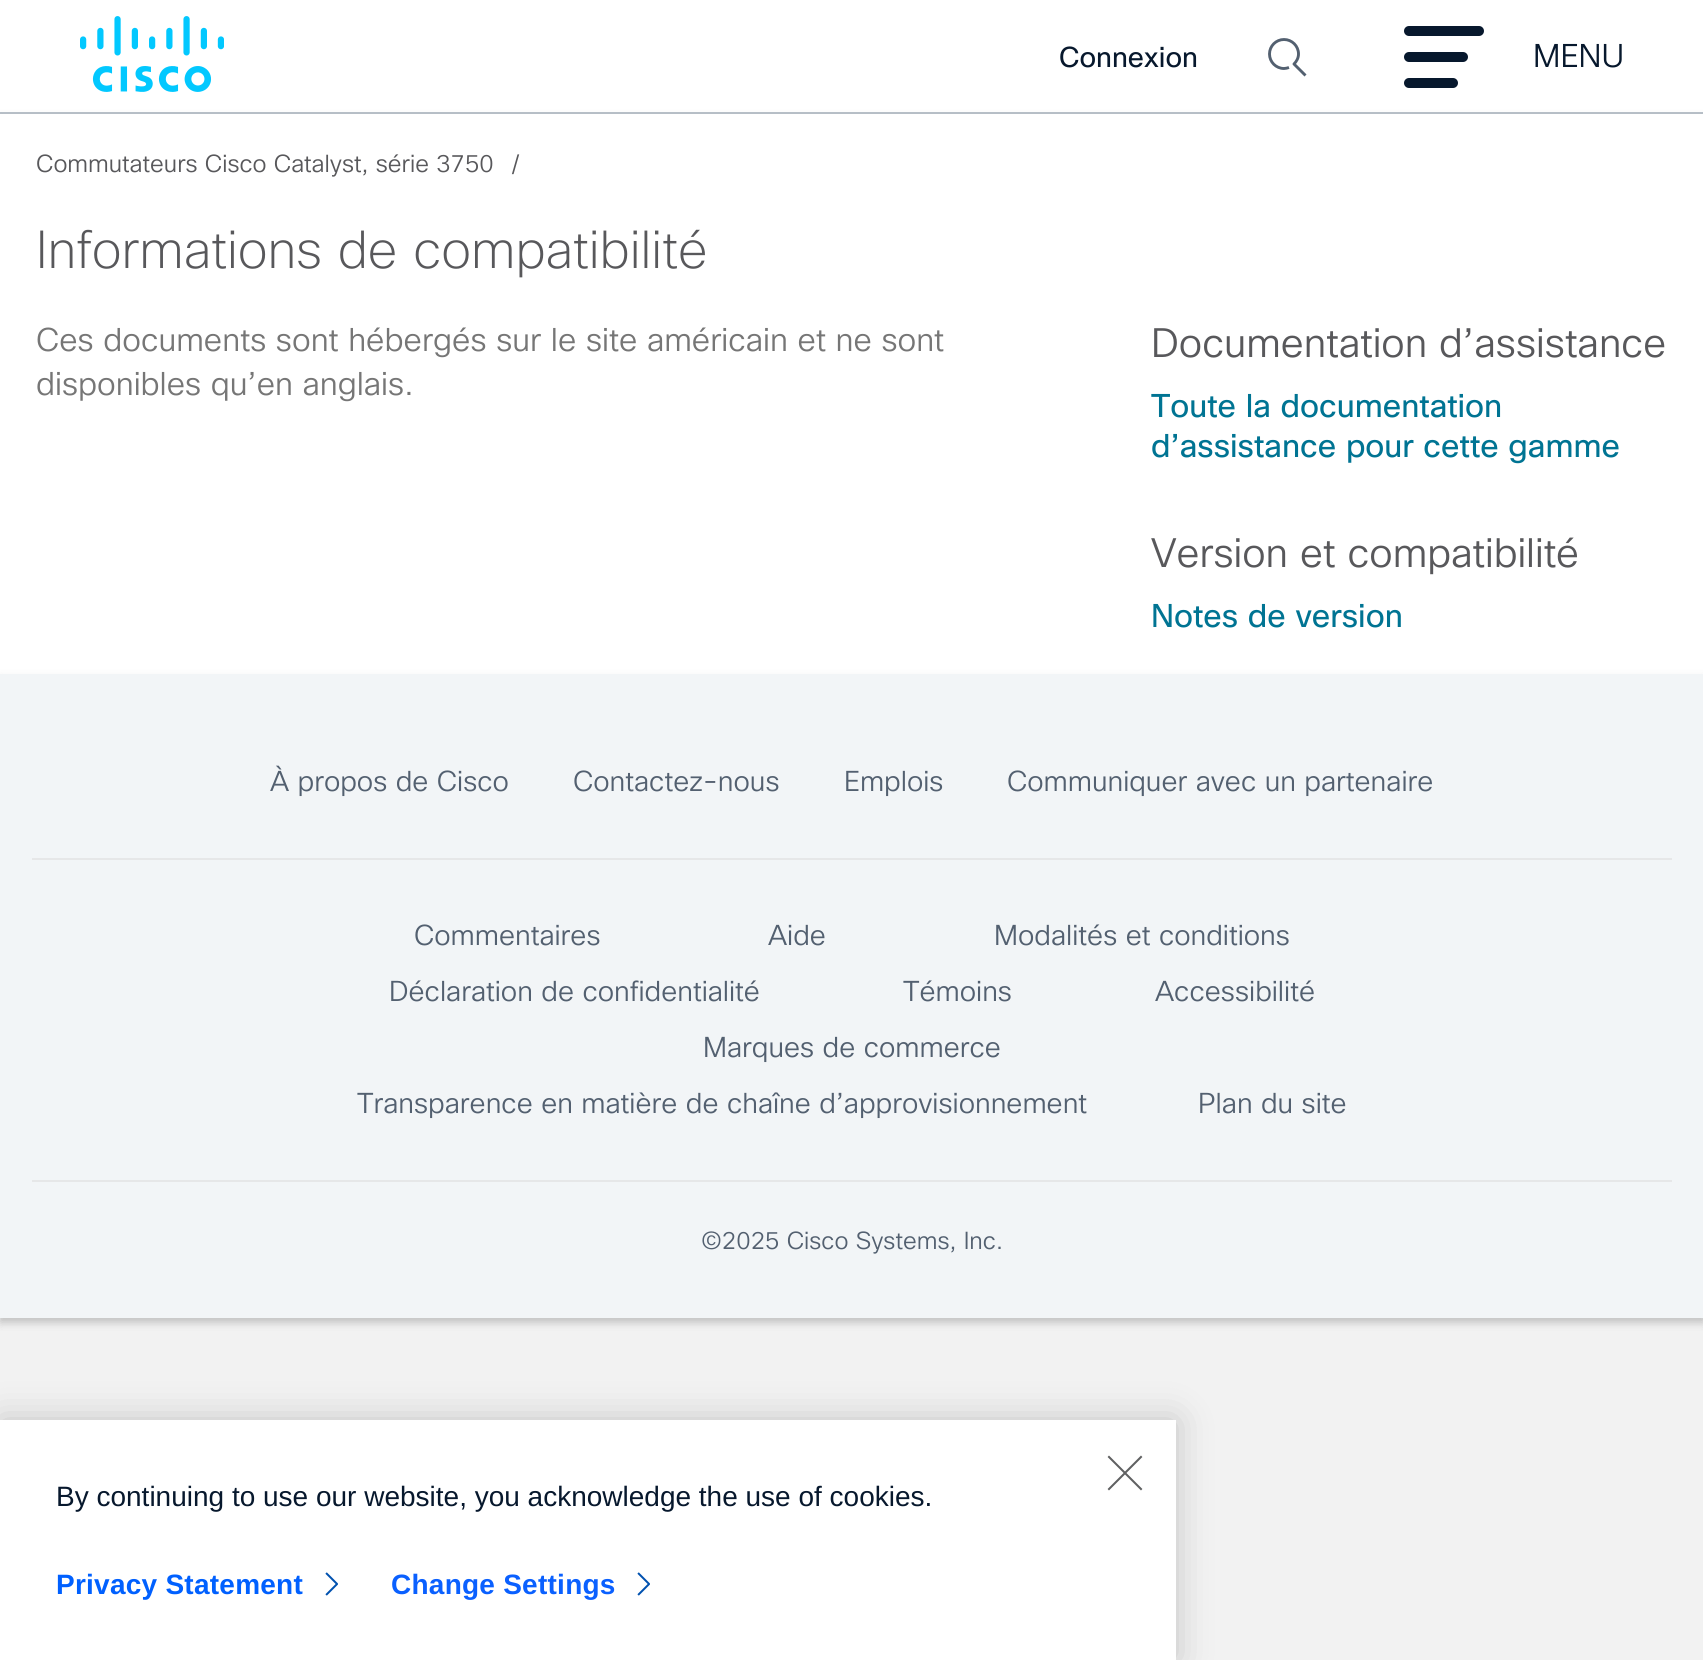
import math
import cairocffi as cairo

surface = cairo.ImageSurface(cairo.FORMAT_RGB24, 1703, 1660)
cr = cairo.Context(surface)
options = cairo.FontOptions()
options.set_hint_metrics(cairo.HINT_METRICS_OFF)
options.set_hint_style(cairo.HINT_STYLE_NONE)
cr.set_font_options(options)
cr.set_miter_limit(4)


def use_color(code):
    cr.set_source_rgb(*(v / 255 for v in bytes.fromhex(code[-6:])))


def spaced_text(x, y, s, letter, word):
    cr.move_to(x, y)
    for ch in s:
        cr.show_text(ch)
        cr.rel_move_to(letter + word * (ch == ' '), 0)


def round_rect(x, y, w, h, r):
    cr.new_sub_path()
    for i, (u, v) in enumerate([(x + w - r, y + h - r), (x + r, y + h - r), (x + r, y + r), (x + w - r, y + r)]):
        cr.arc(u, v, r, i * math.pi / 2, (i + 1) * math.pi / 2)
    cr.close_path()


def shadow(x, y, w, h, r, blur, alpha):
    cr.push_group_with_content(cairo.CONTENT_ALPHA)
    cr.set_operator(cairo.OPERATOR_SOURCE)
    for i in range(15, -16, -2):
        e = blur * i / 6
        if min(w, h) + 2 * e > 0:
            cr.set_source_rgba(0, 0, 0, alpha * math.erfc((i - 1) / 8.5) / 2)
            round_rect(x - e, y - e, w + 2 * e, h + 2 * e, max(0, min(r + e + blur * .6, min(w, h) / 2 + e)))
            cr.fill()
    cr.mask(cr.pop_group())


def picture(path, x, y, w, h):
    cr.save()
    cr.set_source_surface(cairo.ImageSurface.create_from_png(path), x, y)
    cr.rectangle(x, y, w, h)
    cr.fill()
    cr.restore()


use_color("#f2f2f2")
cr.paint()
use_color("#ffffff")
cr.rectangle(0, 0, 1703, 112)
cr.fill()
use_color("#b9c1c9")
cr.rectangle(0, 112, 1703, 2)
cr.fill()
picture("img1.png", 80, 16, 144, 76)
cr.select_font_face("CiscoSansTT")
cr.set_font_size(28)
use_color("#07182d")
cr.move_to(1059, 67)
cr.show_text("Connexion")
cr.new_path()
cr.move_to(1289, 67.5)
cr.curve_to(1287.5, 68, 1285.5, 68.5, 1284, 68.5)
cr.curve_to(1276, 68.5, 1269.5, 62, 1269.5, 54)
cr.curve_to(1269.5, 46, 1276, 39.5, 1284, 39.5)
cr.curve_to(1292, 39.5, 1298.5, 46, 1298.5, 54)
cr.curve_to(1298.5, 58, 1296.5, 61.5, 1294, 64)
cr.line_to(1305.5, 75.5)
use_color("#536070")
cr.set_line_width(2.9)
cr.set_line_join(cairo.LINE_JOIN_ROUND)
cr.stroke()
use_color("#07182d")
round_rect(1404, 26, 80, 10, 5)
cr.fill()
round_rect(1404, 52, 64, 10, 5)
cr.fill()
round_rect(1404, 78, 54, 10, 5)
cr.fill()
cr.select_font_face("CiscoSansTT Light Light")
cr.set_font_size(32)
cr.move_to(1533, 67)
cr.show_text("MENU")
use_color("#000000")
shadow(0, 118, 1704, 1204, 0, 5, 0.12)
use_color("#ffffff")
cr.rectangle(0, 114, 1703, 560)
cr.fill()
cr.set_font_size(24)
use_color("#58585b")
cr.move_to(36, 172)
cr.show_text("Commutateurs Cisco Catalyst, série 3750")
cr.move_to(511, 172)
cr.show_text("/")
cr.select_font_face("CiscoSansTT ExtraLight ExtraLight")
cr.set_font_size(52)
cr.move_to(36, 268)
cr.show_text("Informations de compatibilité")
cr.select_font_face("CiscoSansTT Light Light")
cr.set_font_size(32)
use_color("#767676")
cr.move_to(36, 351)
cr.show_text("Ces documents sont hébergés sur le site américain et ne sont")
cr.move_to(36, 395)
cr.show_text("disponibles qu’en anglais.")
cr.set_font_size(40)
use_color("#58585b")
cr.move_to(1151, 357)
cr.show_text("Documentation d’assistance")
cr.select_font_face("CiscoSansTT")
cr.set_font_size(32)
use_color("#007493")
cr.move_to(1151, 417)
cr.show_text("Toute la documentation")
cr.move_to(1151, 457)
cr.show_text("d’assistance pour cette gamme")
cr.select_font_face("CiscoSansTT Light Light")
cr.set_font_size(40)
use_color("#58585b")
cr.move_to(1151, 567)
cr.show_text("Version et compatibilité")
cr.select_font_face("CiscoSansTT")
cr.set_font_size(32)
use_color("#007493")
cr.move_to(1151, 627)
cr.show_text("Notes de version")
use_color("#f2f5f7")
cr.rectangle(0, 674, 1703, 644)
cr.fill()
cr.save()
cr.set_fill_rule(cairo.FILL_RULE_EVEN_ODD)
cr.new_path()
cr.move_to(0, 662)
cr.line_to(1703, 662)
cr.line_to(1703, 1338)
cr.line_to(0, 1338)
cr.close_path()
cr.move_to(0, 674)
cr.line_to(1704, 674)
cr.line_to(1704, 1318)
cr.line_to(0, 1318)
cr.close_path()
cr.clip()
use_color("#000000")
shadow(0, 678, 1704, 644, 0, 5, 0.12)
cr.restore()
cr.select_font_face("CiscoSansTT Light Light")
cr.set_font_size(28)
use_color("#536070")
cr.move_to(270, 791)
cr.show_text("À propos de Cisco")
cr.move_to(573, 791)
cr.show_text("Contactez-nous")
cr.move_to(844, 791)
cr.show_text("Emplois")
cr.move_to(1007, 791)
cr.show_text("Communiquer avec un partenaire")
use_color("#e6e7e8")
cr.rectangle(32, 858, 1640, 2)
cr.fill()
use_color("#536070")
cr.move_to(414, 945)
cr.show_text("Commentaires")
cr.move_to(768, 945)
cr.show_text("Aide")
cr.move_to(994, 945)
cr.show_text("Modalités et conditions")
cr.move_to(389, 1001)
cr.show_text("Déclaration de confidentialité")
cr.move_to(903, 1001)
cr.show_text("Témoins")
cr.move_to(1155, 1001)
cr.show_text("Accessibilité")
cr.move_to(703, 1057)
cr.show_text("Marques de commerce")
cr.move_to(357, 1113)
cr.show_text("Transparence en matière de chaîne d’approvisionnement")
cr.move_to(1198, 1113)
cr.show_text("Plan du site")
use_color("#e6e7e8")
cr.rectangle(32, 1180, 1640, 2)
cr.fill()
cr.set_font_size(24)
use_color("#536070")
cr.move_to(701, 1249)
cr.show_text("©2025 Cisco Systems, Inc.")
use_color("#000000")
shadow(0, 1420, 1176, 240, 0, 18, 0.2)
use_color("#ffffff")
cr.rectangle(0, 1420, 1176, 240)
cr.fill()
picture("img2.png", 1107, 1455, 36, 36)
cr.select_font_face("Liberation Sans")
cr.set_font_size(28)
use_color("#07182d")
cr.move_to(56, 1506)
cr.show_text("By continuing to use our website, you acknowledge the use of cookies.")
cr.select_font_face("Liberation Sans", cairo.FONT_SLANT_NORMAL, cairo.FONT_WEIGHT_BOLD)
use_color("#0060ff")
spaced_text(56, 1594, "Privacy Statement", 0.25, 0)
picture("img3.png", 325, 1572, 13, 24)
use_color("#0a60ff")
spaced_text(391, 1594, "Change Settings", 0.25, 0)
picture("img3.png", 637, 1572, 13, 24)
surface.write_to_png("result.png")
